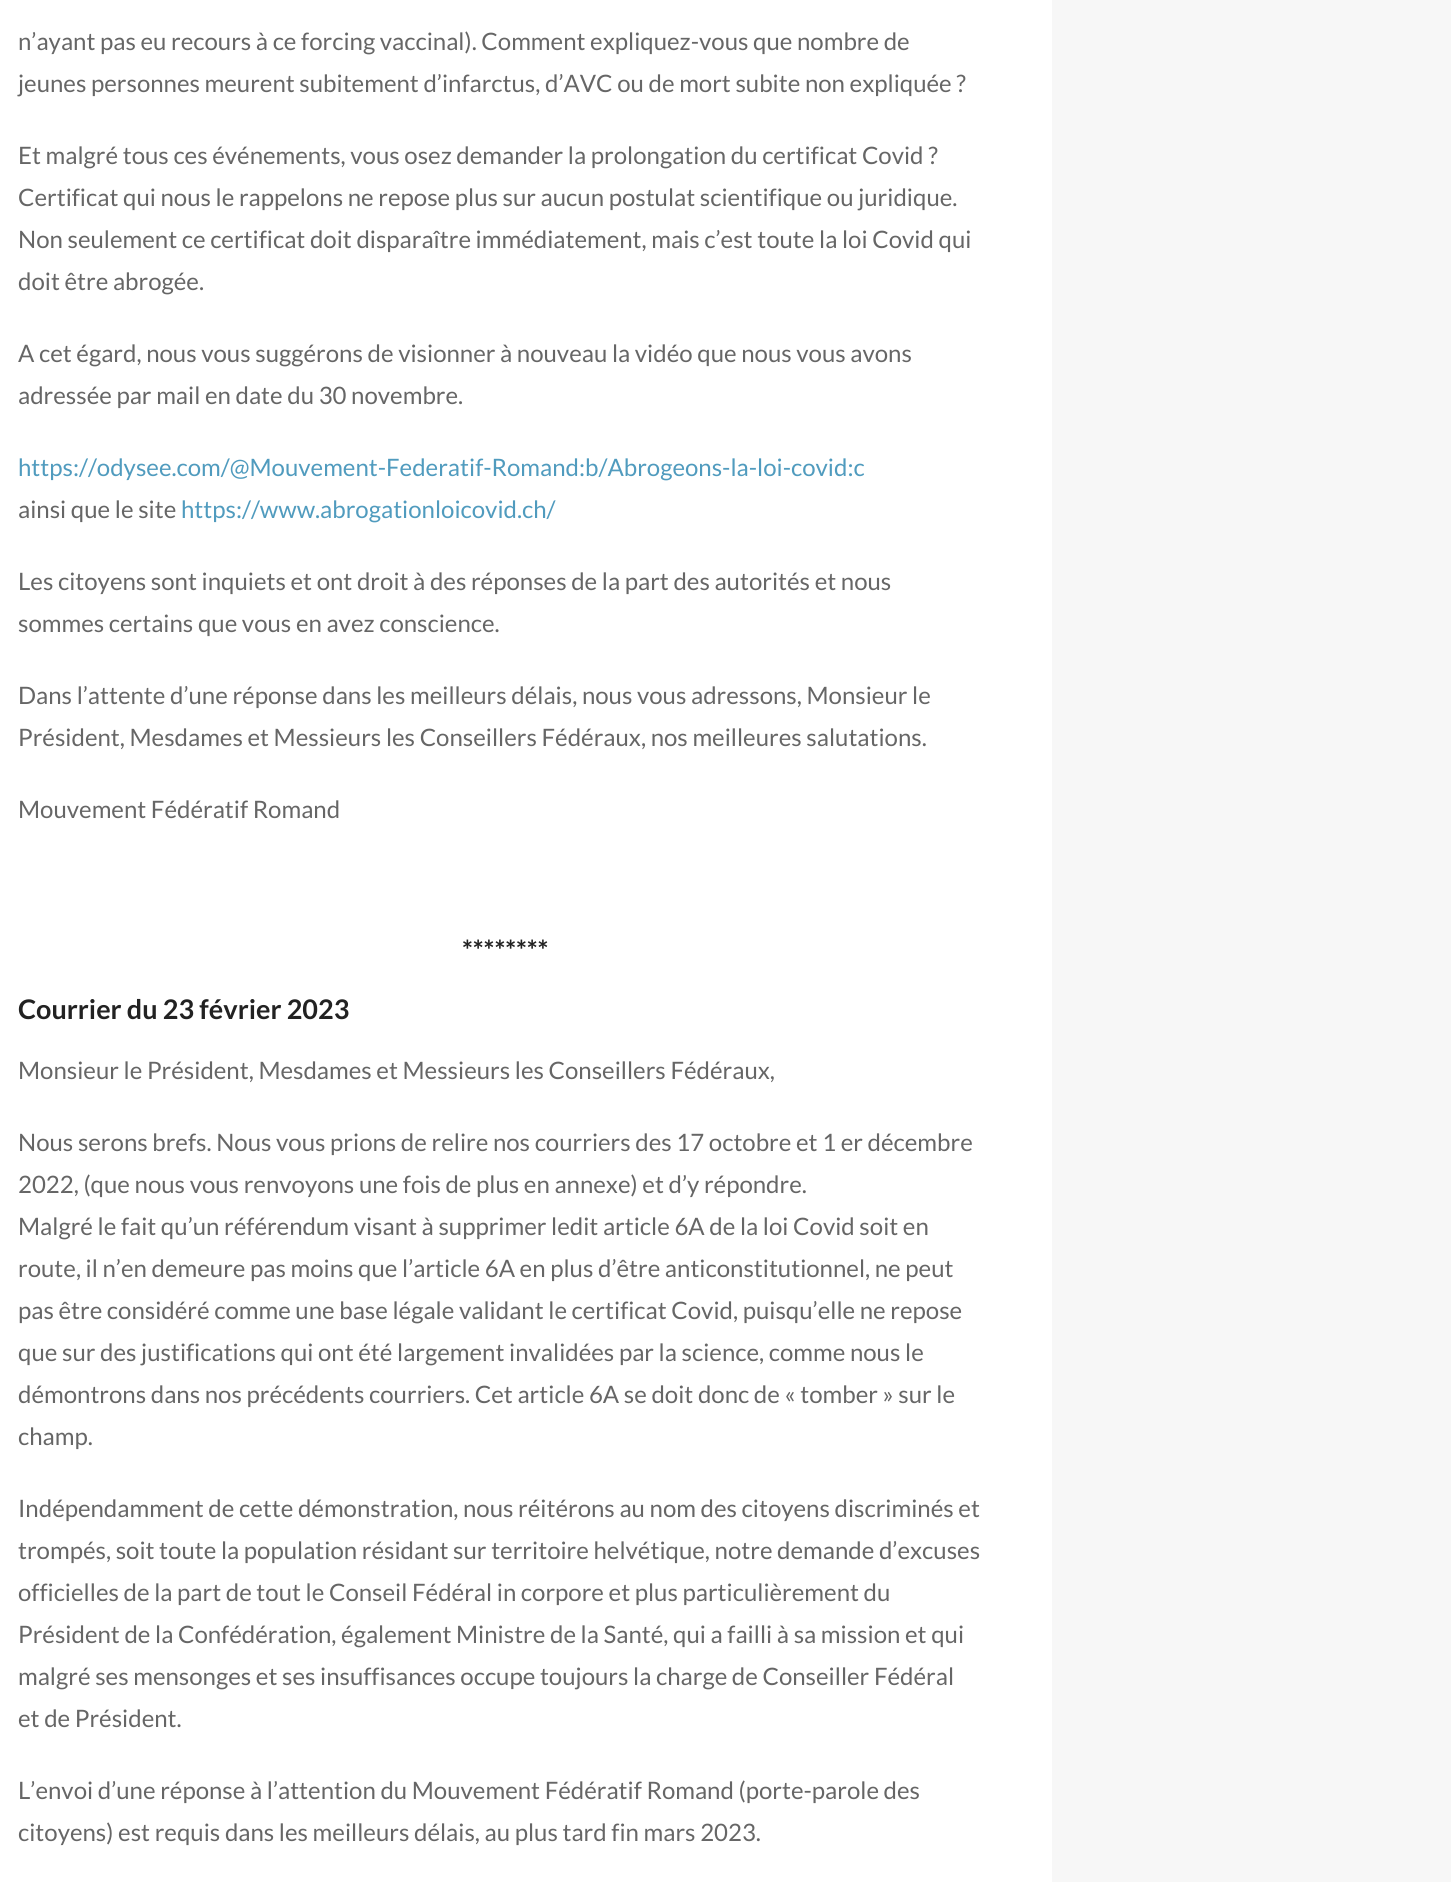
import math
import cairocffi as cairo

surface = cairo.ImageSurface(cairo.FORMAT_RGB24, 1451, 1882)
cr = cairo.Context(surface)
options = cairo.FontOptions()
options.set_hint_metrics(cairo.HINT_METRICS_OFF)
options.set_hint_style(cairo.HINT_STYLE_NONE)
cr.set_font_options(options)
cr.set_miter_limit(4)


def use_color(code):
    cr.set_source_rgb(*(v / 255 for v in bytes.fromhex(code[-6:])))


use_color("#ffffff")
cr.paint()
cr.select_font_face("Lato")
cr.set_font_size(24)
use_color("#666666")
cr.move_to(18, 50)
cr.show_text("n’ayant pas eu recours à ce forcing vaccinal). Comment expliquez-vous que nombre de")
cr.move_to(18, 92)
cr.show_text("jeunes personnes meurent subitement d’infarctus, d’AVC ou de mort subite non expliquée ?")
cr.move_to(18, 164)
cr.show_text("Et malgré tous ces événements, vous osez demander la prolongation du certificat Covid ?")
cr.move_to(18, 206)
cr.show_text("Certificat qui nous le rappelons ne repose plus sur aucun postulat scientifique ou juridique.")
cr.move_to(18, 248)
cr.show_text("Non seulement ce certificat doit disparaître immédiatement, mais c’est toute la loi Covid qui")
cr.move_to(18, 290)
cr.show_text("doit être abrogée.")
cr.move_to(18, 362)
cr.show_text("A cet égard, nous vous suggérons de visionner à nouveau la vidéo que nous vous avons")
cr.move_to(18, 404)
cr.show_text("adressée par mail en date du 30 novembre.")
use_color("#509bbe")
cr.move_to(18, 476)
cr.show_text("https://odysee.com/@Mouvement-Federatif-Romand:b/Abrogeons-la-loi-covid:c")
use_color("#666666")
cr.move_to(18, 518)
cr.show_text("ainsi que le site")
use_color("#509bbe")
cr.move_to(181, 518)
cr.show_text("https://www.abrogationloicovid.ch/")
use_color("#666666")
cr.move_to(18, 590)
cr.show_text("Les citoyens sont inquiets et ont droit à des réponses de la part des autorités et nous")
cr.move_to(18, 632)
cr.show_text("sommes certains que vous en avez conscience.")
cr.move_to(18, 704)
cr.show_text("Dans l’attente d’une réponse dans les meilleurs délais, nous vous adressons, Monsieur le")
cr.move_to(18, 746)
cr.show_text("Président, Mesdames et Messieurs les Conseillers Fédéraux, nos meilleures salutations.")
cr.move_to(18, 818)
cr.show_text("Mouvement Fédératif Romand")
cr.select_font_face("Lato", cairo.FONT_SLANT_NORMAL, cairo.FONT_WEIGHT_BOLD)
cr.set_font_size(27)
use_color("#222222")
cr.move_to(462, 960)
cr.show_text("********")
cr.move_to(18, 1019)
cr.show_text("Courrier du 23 février 2023")
cr.select_font_face("Lato")
cr.set_font_size(24)
use_color("#666666")
cr.move_to(18, 1079)
cr.show_text("Monsieur le Président, Mesdames et Messieurs les Conseillers Fédéraux,")
cr.move_to(18, 1151)
cr.show_text("Nous serons brefs. Nous vous prions de relire nos courriers des 17 octobre et 1 er décembre")
cr.move_to(18, 1193)
cr.show_text("2022, (que nous vous renvoyons une fois de plus en annexe) et d’y répondre.")
cr.move_to(18, 1235)
cr.show_text("Malgré le fait qu’un référendum visant à supprimer ledit article 6A de la loi Covid soit en")
cr.move_to(18, 1277)
cr.show_text("route, il n’en demeure pas moins que l’article 6A en plus d’être anticonstitutionnel, ne peut")
cr.move_to(18, 1319)
cr.show_text("pas être considéré comme une base légale validant le certificat Covid, puisqu’elle ne repose")
cr.move_to(18, 1361)
cr.show_text("que sur des justifications qui ont été largement invalidées par la science, comme nous le")
cr.move_to(18, 1403)
cr.show_text("démontrons dans nos précédents courriers. Cet article 6A se doit donc de « tomber » sur le")
cr.move_to(18, 1445)
cr.show_text("champ.")
cr.move_to(18, 1517)
cr.show_text("Indépendamment de cette démonstration, nous réitérons au nom des citoyens discriminés et")
cr.move_to(18, 1559)
cr.show_text("trompés, soit toute la population résidant sur territoire helvétique, notre demande d’excuses")
cr.move_to(18, 1601)
cr.show_text("officielles de la part de tout le Conseil Fédéral in corpore et plus particulièrement du")
cr.move_to(18, 1643)
cr.show_text("Président de la Confédération, également Ministre de la Santé, qui a failli à sa mission et qui")
cr.move_to(18, 1685)
cr.show_text("malgré ses mensonges et ses insuffisances occupe toujours la charge de Conseiller Fédéral")
cr.move_to(18, 1727)
cr.show_text("et de Président.")
cr.move_to(18, 1799)
cr.show_text("L’envoi d’une réponse à l’attention du Mouvement Fédératif Romand (porte-parole des")
cr.move_to(18, 1841)
cr.show_text("citoyens) est requis dans les meilleurs délais, au plus tard fin mars 2023.")
use_color("#f7f7f7")
cr.rectangle(1052, 0, 399, 1882)
cr.fill()
surface.write_to_png("result.png")
